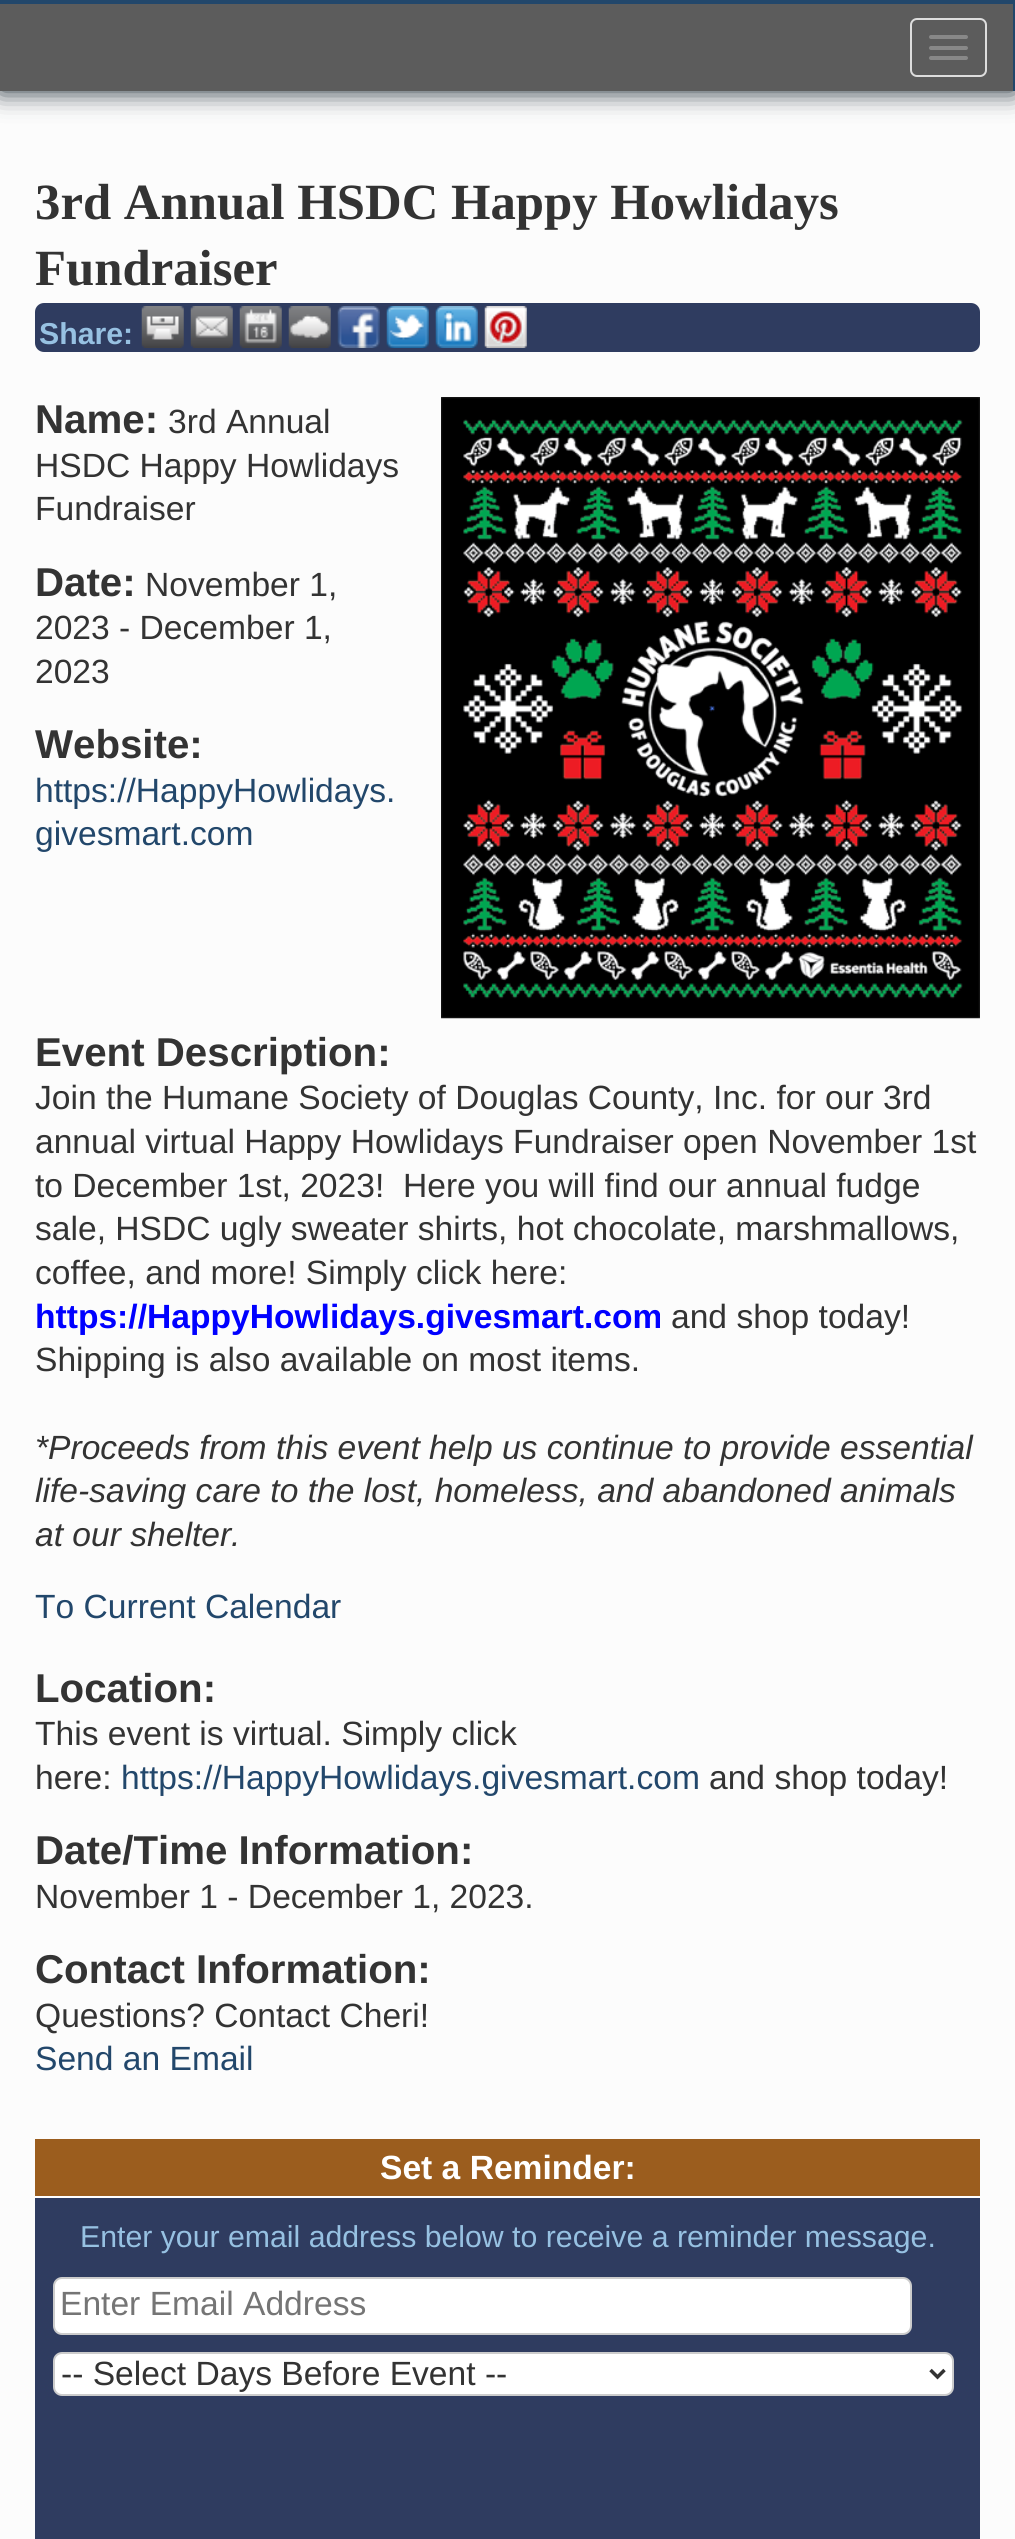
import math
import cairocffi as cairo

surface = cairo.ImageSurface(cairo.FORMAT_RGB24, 1015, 2539)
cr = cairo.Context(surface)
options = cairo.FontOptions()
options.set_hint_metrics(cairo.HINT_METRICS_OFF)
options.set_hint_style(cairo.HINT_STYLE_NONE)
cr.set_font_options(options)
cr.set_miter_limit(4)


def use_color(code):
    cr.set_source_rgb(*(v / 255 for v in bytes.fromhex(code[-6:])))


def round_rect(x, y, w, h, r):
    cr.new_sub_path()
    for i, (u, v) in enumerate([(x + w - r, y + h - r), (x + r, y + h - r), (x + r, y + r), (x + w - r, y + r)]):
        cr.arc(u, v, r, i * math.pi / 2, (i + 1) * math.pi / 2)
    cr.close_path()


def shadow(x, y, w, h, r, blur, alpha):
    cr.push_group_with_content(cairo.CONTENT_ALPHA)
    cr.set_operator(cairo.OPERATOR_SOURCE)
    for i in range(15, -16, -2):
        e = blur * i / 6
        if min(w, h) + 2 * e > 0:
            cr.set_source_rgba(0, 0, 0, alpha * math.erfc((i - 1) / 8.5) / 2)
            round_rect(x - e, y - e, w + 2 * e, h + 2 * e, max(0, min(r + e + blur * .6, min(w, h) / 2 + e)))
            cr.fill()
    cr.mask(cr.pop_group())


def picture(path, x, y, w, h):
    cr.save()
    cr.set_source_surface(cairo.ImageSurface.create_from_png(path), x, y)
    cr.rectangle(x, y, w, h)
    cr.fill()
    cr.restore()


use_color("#fcfcfc")
cr.paint()
use_color("#13212b")
shadow(0, -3, 1015, 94, 0, 13, 1)
use_color("#5c5c5c")
cr.rectangle(0, 4, 1013, 87)
cr.fill()
use_color("#22476b")
cr.rectangle(0, 0, 1015, 4)
cr.fill()
cr.rectangle(1013, 0, 2, 91)
cr.fill()
round_rect(911, 19, 75, 57, 6)
use_color("#dddddd")
cr.stroke()
use_color("#888888")
round_rect(929, 35, 39, 4, 2)
cr.fill()
round_rect(929, 46, 39, 4, 2)
cr.fill()
round_rect(929, 56, 39, 4, 2)
cr.fill()
cr.select_font_face("Liberation Serif", cairo.FONT_SLANT_NORMAL, cairo.FONT_WEIGHT_BOLD)
cr.set_font_size(50.75)
use_color("#333333")
cr.move_to(35, 219)
cr.show_text("3rd Annual HSDC Happy Howlidays")
cr.move_to(35, 285)
cr.show_text("Fundraiser")
use_color("#2f3c60")
round_rect(35, 303, 945, 49, 9)
cr.fill()
cr.select_font_face("Liberation Sans", cairo.FONT_SLANT_NORMAL, cairo.FONT_WEIGHT_BOLD)
cr.set_font_size(30.25)
use_color("#97c1e2")
cr.move_to(39, 344)
cr.show_text("Share:")
picture("img1.png", 141, 306, 43, 42)
picture("img2.png", 190, 306, 43, 42)
picture("img3.png", 239, 306, 43, 42)
picture("img4.png", 288, 306, 43, 42)
picture("img5.png", 337, 306, 43, 42)
picture("img6.png", 386, 306, 43, 42)
picture("img7.png", 435, 306, 43, 42)
picture("img8.png", 484, 306, 43, 42)
cr.set_font_size(40.25)
use_color("#333333")
cr.move_to(35, 433)
cr.show_text("Name:")
cr.select_font_face("Liberation Sans")
cr.set_font_size(33.6)
cr.move_to(168, 433)
cr.show_text("3rd Annual")
cr.move_to(35, 477)
cr.show_text("HSDC Happy Howlidays")
cr.move_to(35, 520)
cr.show_text("Fundraiser")
cr.select_font_face("Liberation Sans", cairo.FONT_SLANT_NORMAL, cairo.FONT_WEIGHT_BOLD)
cr.set_font_size(40.25)
cr.move_to(35, 596)
cr.show_text("Date:")
cr.select_font_face("Liberation Sans")
cr.set_font_size(33.6)
cr.move_to(145, 596)
cr.show_text("November 1,")
cr.move_to(35, 639)
cr.show_text("2023 - December 1,")
cr.move_to(35, 683)
cr.show_text("2023")
cr.select_font_face("Liberation Sans", cairo.FONT_SLANT_NORMAL, cairo.FONT_WEIGHT_BOLD)
cr.set_font_size(40.25)
cr.move_to(35, 758)
cr.show_text("Website:")
cr.select_font_face("Liberation Sans")
cr.set_font_size(33.6)
use_color("#22476b")
cr.move_to(35, 802)
cr.show_text("https://HappyHowlidays.")
cr.move_to(35, 845)
cr.show_text("givesmart.com")
picture("img9.png", 441, 397, 539, 622)
cr.select_font_face("Liberation Sans", cairo.FONT_SLANT_NORMAL, cairo.FONT_WEIGHT_BOLD)
cr.set_font_size(40.25)
use_color("#333333")
cr.move_to(35, 1066)
cr.show_text("Event Description:")
cr.select_font_face("Liberation Sans")
cr.set_font_size(33.6)
cr.move_to(35, 1109)
cr.show_text("Join the Humane Society of Douglas County, Inc. for our 3rd")
cr.move_to(35, 1153)
cr.show_text("annual virtual Happy Howlidays Fundraiser open November 1st")
cr.move_to(35, 1197)
cr.show_text("to December 1st, 2023!  Here you will find our annual fudge")
cr.move_to(35, 1240)
cr.show_text("sale, HSDC ugly sweater shirts, hot chocolate, marshmallows,")
cr.move_to(35, 1284)
cr.show_text("coffee, and more! Simply click here:")
cr.select_font_face("Liberation Sans", cairo.FONT_SLANT_NORMAL, cairo.FONT_WEIGHT_BOLD)
use_color("#0000ff")
cr.move_to(35, 1328)
cr.show_text("https://HappyHowlidays.givesmart.com")
cr.select_font_face("Liberation Sans")
use_color("#333333")
cr.move_to(671, 1328)
cr.show_text("and shop today!")
cr.move_to(35, 1371)
cr.show_text("Shipping is also available on most items.")
cr.select_font_face("Liberation Sans", cairo.FONT_SLANT_ITALIC)
cr.move_to(35, 1459)
cr.show_text("*Proceeds from this event help us continue to provide essential")
cr.move_to(35, 1502)
cr.show_text("life-saving care to the lost, homeless, and abandoned animals")
cr.move_to(35, 1546)
cr.show_text("at our shelter.")
cr.select_font_face("Liberation Sans")
use_color("#22476b")
cr.move_to(35, 1618)
cr.show_text("To Current Calendar")
cr.select_font_face("Liberation Sans", cairo.FONT_SLANT_NORMAL, cairo.FONT_WEIGHT_BOLD)
cr.set_font_size(40.25)
use_color("#333333")
cr.move_to(35, 1702)
cr.show_text("Location:")
cr.select_font_face("Liberation Sans")
cr.set_font_size(33.6)
cr.move_to(35, 1745)
cr.show_text("This event is virtual. Simply click")
cr.move_to(35, 1789)
cr.show_text("here:")
use_color("#22476b")
cr.move_to(121, 1789)
cr.show_text("https://HappyHowlidays.givesmart.com")
use_color("#333333")
cr.move_to(709, 1789)
cr.show_text("and shop today!")
cr.select_font_face("Liberation Sans", cairo.FONT_SLANT_NORMAL, cairo.FONT_WEIGHT_BOLD)
cr.set_font_size(40.25)
cr.move_to(35, 1864)
cr.show_text("Date/Time Information:")
cr.select_font_face("Liberation Sans")
cr.set_font_size(33.6)
cr.move_to(35, 1908)
cr.show_text("November 1 - December 1, 2023.")
cr.select_font_face("Liberation Sans", cairo.FONT_SLANT_NORMAL, cairo.FONT_WEIGHT_BOLD)
cr.set_font_size(40.25)
cr.move_to(35, 1983)
cr.show_text("Contact Information:")
cr.select_font_face("Liberation Sans")
cr.set_font_size(33.6)
cr.move_to(35, 2027)
cr.show_text("Questions? Contact Cheri!")
use_color("#22476b")
cr.move_to(35, 2070)
cr.show_text("Send an Email")
use_color("#2f3c60")
cr.rectangle(35, 2198, 945, 341)
cr.fill()
use_color("#9b5d1e")
cr.rectangle(35, 2139, 945, 57)
cr.fill()
use_color("#ffffff")
cr.rectangle(35, 2196, 945, 2)
cr.fill()
cr.select_font_face("Liberation Sans", cairo.FONT_SLANT_NORMAL, cairo.FONT_WEIGHT_BOLD)
cr.move_to(380, 2179)
cr.show_text("Set a Reminder:")
cr.select_font_face("Liberation Sans")
cr.set_font_size(30.25)
use_color("#97c1e2")
cr.move_to(80, 2247)
cr.show_text("Enter your email address below to receive a reminder message.")
use_color("#ffffff")
round_rect(54, 2278, 857, 56, 8)
cr.fill_preserve()
use_color("#cccccc")
cr.stroke()
cr.set_font_size(33.6)
use_color("#757575")
cr.move_to(60, 2315)
cr.show_text("Enter Email Address")
use_color("#ffffff")
round_rect(54, 2353, 899, 42, 8)
cr.fill_preserve()
use_color("#cccccc")
cr.stroke()
cr.new_path()
cr.move_to(930.5, 2370)
cr.line_to(937.5, 2377)
cr.line_to(944.5, 2370)
use_color("#333333")
cr.set_line_width(3.5)
cr.stroke()
cr.move_to(61, 2385)
cr.show_text("-- Select Days Before Event --")
surface.write_to_png("result.png")
